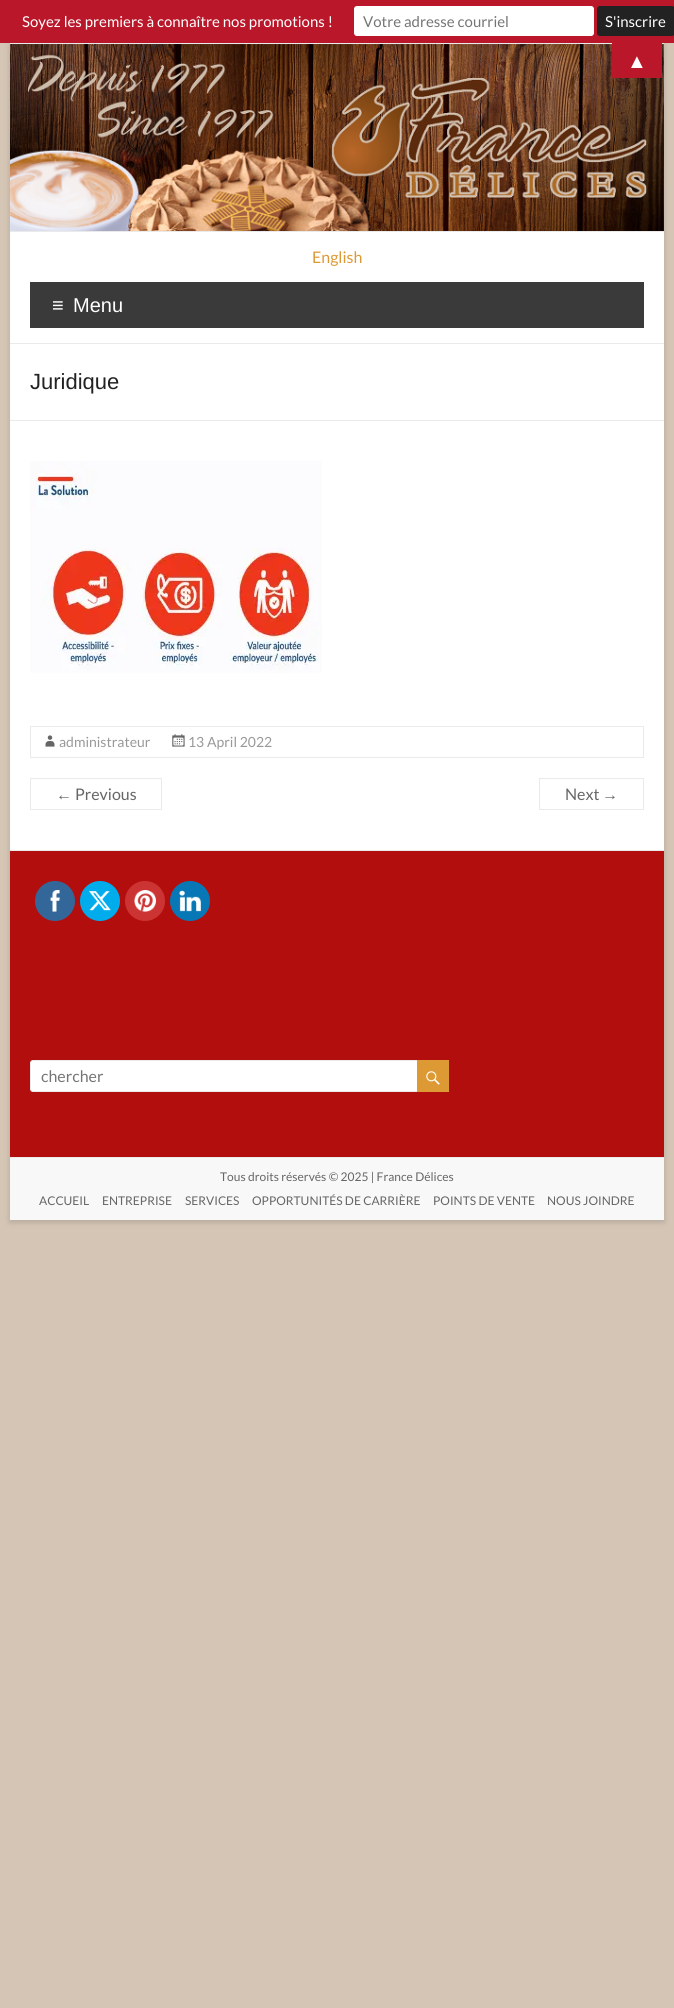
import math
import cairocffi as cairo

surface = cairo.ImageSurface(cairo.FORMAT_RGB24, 674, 2008)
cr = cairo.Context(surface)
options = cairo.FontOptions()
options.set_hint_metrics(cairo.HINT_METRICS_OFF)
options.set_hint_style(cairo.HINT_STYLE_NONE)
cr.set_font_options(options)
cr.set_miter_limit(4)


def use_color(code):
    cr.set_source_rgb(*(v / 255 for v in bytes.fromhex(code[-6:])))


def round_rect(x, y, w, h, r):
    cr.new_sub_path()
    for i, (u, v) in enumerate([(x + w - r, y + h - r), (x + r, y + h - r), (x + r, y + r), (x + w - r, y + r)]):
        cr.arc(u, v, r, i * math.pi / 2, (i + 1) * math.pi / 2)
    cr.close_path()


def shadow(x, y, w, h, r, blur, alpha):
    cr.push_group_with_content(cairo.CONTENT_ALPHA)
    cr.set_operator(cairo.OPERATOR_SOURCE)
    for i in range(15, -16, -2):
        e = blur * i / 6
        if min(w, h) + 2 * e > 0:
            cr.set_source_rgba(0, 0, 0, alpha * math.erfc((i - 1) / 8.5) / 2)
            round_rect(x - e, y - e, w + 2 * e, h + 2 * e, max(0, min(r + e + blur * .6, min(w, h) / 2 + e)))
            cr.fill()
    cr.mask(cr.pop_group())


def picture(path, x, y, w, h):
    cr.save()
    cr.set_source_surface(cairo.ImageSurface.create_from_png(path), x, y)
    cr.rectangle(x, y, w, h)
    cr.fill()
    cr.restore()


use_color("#d4c5b4")
cr.paint()
use_color("#646464")
shadow(10, 45, 654, 1177, 0, 3, 0.3)
use_color("#ba182a")
cr.rectangle(0, 0, 674, 43)
cr.fill()
cr.select_font_face("Lato")
cr.set_font_size(15)
use_color("#ffffff")
cr.move_to(22, 27)
cr.show_text("Soyez les premiers à connaître nos promotions !")
round_rect(354.5, 6.5, 239, 29, 2.5)
cr.fill_preserve()
cr.set_line_width(1)
cr.stroke()
use_color("#757575")
cr.move_to(363, 27)
cr.show_text("Votre adresse courriel")
use_color("#222222")
round_rect(597.5, 6.5, 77, 29, 2.5)
cr.fill_preserve()
cr.stroke()
use_color("#ffffff")
cr.move_to(605, 27)
cr.show_text("S'inscrire")
cr.rectangle(10, 44, 654, 806)
cr.fill()
use_color("#eaeaea")
cr.rectangle(10, 43, 654, 1)
cr.fill()
picture("img1.png", 10, 44, 654, 187)
use_color("#ba182a")
cr.rectangle(612, 43, 50, 35)
cr.fill()
cr.select_font_face("Liberation Sans")
cr.set_font_size(20)
use_color("#ffffff")
cr.move_to(627, 68)
cr.show_text("▲")
use_color("#eaeaea")
cr.rectangle(10, 231, 654, 1)
cr.fill()
cr.rectangle(10, 343, 654, 1)
cr.fill()
cr.select_font_face("Lato")
cr.set_font_size(16)
use_color("#dd9933")
cr.move_to(312, 263)
cr.show_text("English")
use_color("#3a3a3a")
cr.rectangle(30, 282, 614, 46)
cr.fill()
cr.select_font_face("Liberation Sans")
cr.set_font_size(20)
use_color("#ffffff")
cr.move_to(52, 312)
cr.show_text("≡")
cr.move_to(73, 312)
cr.show_text("Menu")
use_color("#eaeaea")
cr.rectangle(10, 420, 654, 1)
cr.fill()
cr.set_font_size(22)
use_color("#222222")
cr.move_to(30, 389)
cr.show_text("Juridique")
picture("img2.png", 30, 461, 292, 212)
cr.rectangle(30.5, 726.5, 613, 31)
use_color("#eaeaea")
cr.stroke()
picture("img3.png", 45, 735, 10, 12)
cr.select_font_face("Lato")
cr.set_font_size(14)
use_color("#999999")
cr.move_to(59, 747)
cr.show_text("administrateur")
picture("img4.png", 172, 734, 13, 13)
cr.move_to(188, 747)
cr.show_text("13 April 2022")
cr.rectangle(30.5, 778.5, 131, 31)
use_color("#eaeaea")
cr.stroke()
cr.select_font_face("Liberation Sans")
cr.set_font_size(16)
use_color("#666666")
cr.move_to(56, 800)
cr.show_text("←")
cr.select_font_face("Lato")
cr.move_to(75, 800)
cr.show_text("Previous")
cr.rectangle(539.5, 778.5, 104, 31)
use_color("#eaeaea")
cr.stroke()
use_color("#666666")
cr.move_to(565, 800)
cr.show_text("Next")
cr.select_font_face("Liberation Sans")
cr.move_to(602, 800)
cr.show_text("→")
use_color("#b20e0e")
cr.rectangle(10, 851, 654, 306)
cr.fill()
use_color("#eaeaea")
cr.rectangle(10, 850, 654, 1)
cr.fill()
use_color("#336699")
cr.arc(55, 901, 20, 0, 2 * math.pi)
cr.fill()
picture("img5.png", 50, 890, 10, 22)
use_color("#00acec")
cr.arc(100, 901, 20, 0, 2 * math.pi)
cr.fill()
picture("img6.png", 89, 891, 22, 20)
use_color("#cc3333")
cr.arc(145, 901, 20, 0, 2 * math.pi)
cr.fill()
picture("img7.png", 134, 890, 22, 22)
use_color("#0877b5")
cr.arc(190, 901, 20, 0, 2 * math.pi)
cr.fill()
picture("img8.png", 179, 890, 22, 22)
use_color("#ffffff")
round_rect(30.5, 1060.5, 389, 31, 2.5)
cr.fill_preserve()
use_color("#eaeaea")
cr.stroke()
cr.select_font_face("Lato")
use_color("#757575")
cr.move_to(41, 1082)
cr.show_text("chercher")
use_color("#dd9933")
cr.rectangle(417, 1060, 32, 32)
cr.fill()
picture("img9.png", 426, 1071, 14, 14)
use_color("#f8f8f8")
cr.rectangle(10, 1158, 654, 62)
cr.fill()
use_color("#eaeaea")
cr.rectangle(10, 1157, 654, 1)
cr.fill()
cr.set_font_size(12)
use_color("#666666")
cr.move_to(220, 1181)
cr.show_text("Tous droits réservés © 2025 | France Délices")
cr.move_to(39, 1205)
cr.show_text("ACCUEIL")
cr.move_to(102, 1205)
cr.show_text("ENTREPRISE")
cr.move_to(185, 1205)
cr.show_text("SERVICES")
cr.move_to(252, 1205)
cr.show_text("OPPORTUNITÉS DE CARRIÈRE")
cr.move_to(433, 1205)
cr.show_text("POINTS DE VENTE")
cr.move_to(547, 1205)
cr.show_text("NOUS JOINDRE")
surface.write_to_png("result.png")
